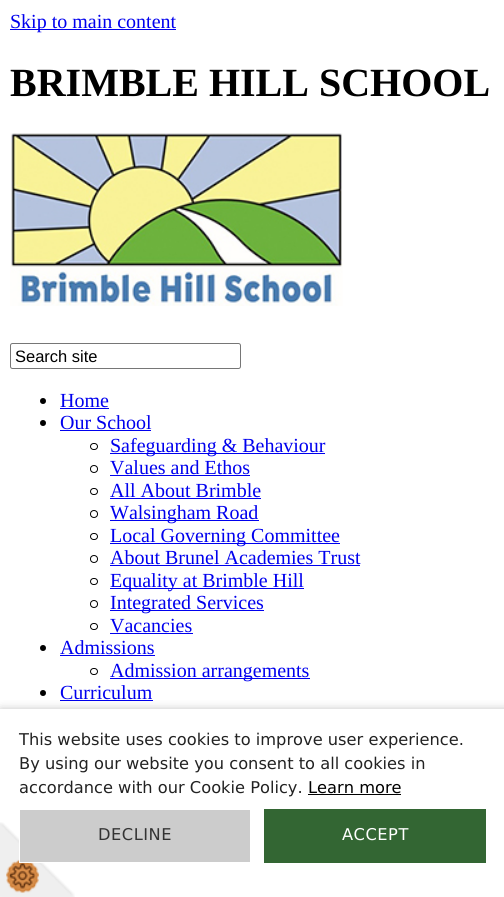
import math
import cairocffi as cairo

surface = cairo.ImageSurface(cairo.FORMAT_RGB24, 504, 897)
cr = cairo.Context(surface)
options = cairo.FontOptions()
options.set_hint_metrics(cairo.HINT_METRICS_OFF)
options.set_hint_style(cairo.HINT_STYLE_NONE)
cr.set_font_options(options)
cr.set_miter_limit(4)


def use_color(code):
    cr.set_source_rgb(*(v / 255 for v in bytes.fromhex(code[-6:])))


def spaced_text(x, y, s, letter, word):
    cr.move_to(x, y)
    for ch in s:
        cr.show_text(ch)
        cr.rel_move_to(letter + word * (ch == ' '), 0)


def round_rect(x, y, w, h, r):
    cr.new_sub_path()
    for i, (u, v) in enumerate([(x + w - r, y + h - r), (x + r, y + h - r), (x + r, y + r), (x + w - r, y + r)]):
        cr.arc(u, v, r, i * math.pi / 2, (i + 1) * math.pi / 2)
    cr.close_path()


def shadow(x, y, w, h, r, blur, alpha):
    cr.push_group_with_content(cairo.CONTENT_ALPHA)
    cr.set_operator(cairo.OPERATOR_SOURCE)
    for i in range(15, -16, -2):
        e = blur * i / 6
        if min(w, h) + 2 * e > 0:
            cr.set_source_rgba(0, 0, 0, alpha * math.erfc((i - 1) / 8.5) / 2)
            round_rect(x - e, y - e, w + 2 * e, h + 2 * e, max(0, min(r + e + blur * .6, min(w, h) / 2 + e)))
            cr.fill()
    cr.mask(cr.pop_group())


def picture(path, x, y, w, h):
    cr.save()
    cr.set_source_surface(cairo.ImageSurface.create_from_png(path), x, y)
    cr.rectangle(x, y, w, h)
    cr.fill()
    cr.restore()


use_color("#ffffff")
cr.paint()
use_color("#0000ee")
cr.rectangle(10, 29, 166, 1)
cr.fill()
cr.select_font_face("Liberation Serif")
cr.set_font_size(20)
cr.move_to(10, 28)
cr.show_text("Skip to main content")
cr.select_font_face("Liberation Serif", cairo.FONT_SLANT_NORMAL, cairo.FONT_WEIGHT_BOLD)
cr.set_font_size(40)
use_color("#000000")
cr.move_to(10, 96)
cr.show_text("BRIMBLE HILL SCHOOL")
picture("img1.png", 10, 133, 333, 173)
round_rect(10.5, 343.5, 230, 25, 2)
use_color("#767676")
cr.set_line_width(1)
cr.stroke()
cr.select_font_face("Liberation Sans")
cr.set_font_size(16.5)
use_color("#000000")
cr.move_to(15, 362)
cr.show_text("Search site")
cr.new_path()
cr.arc(43, 401, 3, 0, 2 * math.pi)
cr.fill()
cr.select_font_face("Liberation Serif")
cr.set_font_size(20)
use_color("#0000ee")
cr.move_to(60, 407)
cr.show_text("Home")
cr.rectangle(60, 408, 49, 1)
cr.fill()
use_color("#000000")
cr.arc(43, 423, 3, 0, 2 * math.pi)
cr.fill()
use_color("#0000ee")
cr.move_to(60, 429)
cr.show_text("Our School")
cr.rectangle(60, 430, 91, 1)
cr.fill()
round_rect(90.5, 443.5, 7, 6, 3)
use_color("#000000")
cr.stroke()
use_color("#0000ee")
cr.rectangle(110, 453, 215, 1)
cr.fill()
cr.move_to(110, 452)
cr.show_text("Safeguarding & Behaviour")
cr.new_path()
cr.arc(94, 469, 3.5, 0, 2 * math.pi)
use_color("#000000")
cr.stroke()
use_color("#0000ee")
cr.move_to(110, 474)
cr.show_text("Values and Ethos")
cr.rectangle(110, 475, 140, 1)
cr.fill()
round_rect(90.5, 488.5, 7, 6, 3)
use_color("#000000")
cr.stroke()
use_color("#0000ee")
cr.move_to(110, 497)
cr.show_text("All About Brimble")
cr.rectangle(110, 498, 151, 1)
cr.fill()
cr.arc(94, 514, 3.5, 0, 2 * math.pi)
use_color("#000000")
cr.stroke()
use_color("#0000ee")
cr.rectangle(110, 520, 149, 1)
cr.fill()
cr.move_to(110, 519)
cr.show_text("Walsingham Road")
round_rect(90.5, 533.5, 7, 6, 3)
use_color("#000000")
cr.stroke()
use_color("#0000ee")
cr.rectangle(110, 543, 230, 1)
cr.fill()
cr.move_to(110, 542)
cr.show_text("Local Governing Committee")
cr.new_path()
cr.arc(94, 559, 3.5, 0, 2 * math.pi)
use_color("#000000")
cr.stroke()
use_color("#0000ee")
cr.move_to(110, 564)
cr.show_text("About Brunel Academies Trust")
cr.rectangle(110, 565, 250, 1)
cr.fill()
round_rect(90.5, 578.5, 7, 6, 3)
use_color("#000000")
cr.stroke()
use_color("#0000ee")
cr.rectangle(110, 588, 194, 1)
cr.fill()
cr.move_to(110, 587)
cr.show_text("Equality at Brimble Hill")
cr.new_path()
cr.arc(94, 604, 3.5, 0, 2 * math.pi)
use_color("#000000")
cr.stroke()
use_color("#0000ee")
cr.rectangle(110, 610, 154, 1)
cr.fill()
cr.move_to(110, 609)
cr.show_text("Integrated Services")
round_rect(90.5, 623.5, 7, 6, 3)
use_color("#000000")
cr.stroke()
use_color("#0000ee")
cr.move_to(110, 632)
cr.show_text("Vacancies")
cr.rectangle(110, 633, 83, 1)
cr.fill()
use_color("#000000")
cr.arc(43, 648, 3, 0, 2 * math.pi)
cr.fill()
use_color("#0000ee")
cr.move_to(60, 654)
cr.show_text("Admissions")
cr.rectangle(60, 655, 95, 1)
cr.fill()
round_rect(90.5, 668.5, 7, 6, 3)
use_color("#000000")
cr.stroke()
use_color("#0000ee")
cr.rectangle(110, 678, 200, 1)
cr.fill()
cr.move_to(110, 677)
cr.show_text("Admission arrangements")
use_color("#000000")
cr.new_path()
cr.arc(43, 693, 3, 0, 2 * math.pi)
cr.fill()
use_color("#0000ee")
cr.move_to(60, 699)
cr.show_text("Curriculum")
cr.rectangle(60, 700, 93, 1)
cr.fill()
use_color("#000000")
shadow(1, 711, 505, 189, 0, 5, 0.35)
use_color("#ffffff")
cr.rectangle(0, 709, 504, 188)
cr.fill()
picture("img2.png", 0, 822, 75, 75)
cr.select_font_face("DejaVu Sans")
cr.set_font_size(16.25)
use_color("#222222")
cr.move_to(19, 745)
cr.show_text("This website uses cookies to improve user experience.")
cr.move_to(19, 769)
cr.show_text("By using our website you consent to all cookies in")
cr.move_to(19, 793)
cr.show_text("accordance with our Cookie Policy.")
use_color("#000000")
cr.move_to(308, 793)
cr.show_text("Learn more")
cr.rectangle(308, 794, 93, 1)
cr.fill()
use_color("#cccccc")
cr.rectangle(19.5, 809.5, 231, 53)
cr.fill_preserve()
use_color("#ffffff")
cr.stroke()
use_color("#333333")
spaced_text(98, 840, "DECLINE", 0.5, 0)
use_color("#336633")
cr.rectangle(264, 809, 222, 54)
cr.fill()
use_color("#ffffff")
spaced_text(342, 840, "ACCEPT", 0.5, 0)
surface.write_to_png("result.png")
